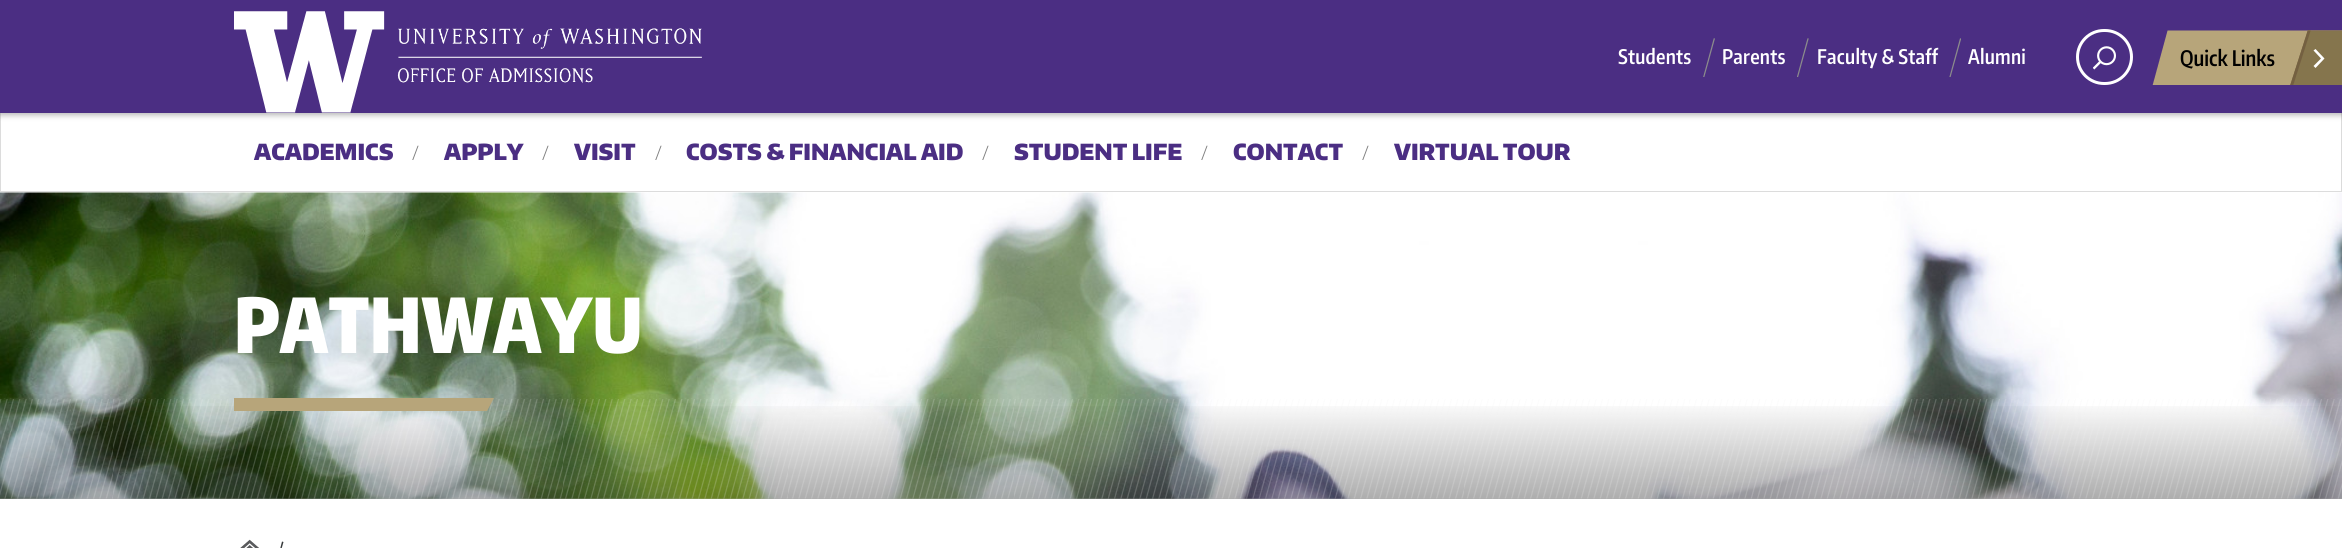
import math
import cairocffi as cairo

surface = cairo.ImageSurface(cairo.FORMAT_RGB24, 2342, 548)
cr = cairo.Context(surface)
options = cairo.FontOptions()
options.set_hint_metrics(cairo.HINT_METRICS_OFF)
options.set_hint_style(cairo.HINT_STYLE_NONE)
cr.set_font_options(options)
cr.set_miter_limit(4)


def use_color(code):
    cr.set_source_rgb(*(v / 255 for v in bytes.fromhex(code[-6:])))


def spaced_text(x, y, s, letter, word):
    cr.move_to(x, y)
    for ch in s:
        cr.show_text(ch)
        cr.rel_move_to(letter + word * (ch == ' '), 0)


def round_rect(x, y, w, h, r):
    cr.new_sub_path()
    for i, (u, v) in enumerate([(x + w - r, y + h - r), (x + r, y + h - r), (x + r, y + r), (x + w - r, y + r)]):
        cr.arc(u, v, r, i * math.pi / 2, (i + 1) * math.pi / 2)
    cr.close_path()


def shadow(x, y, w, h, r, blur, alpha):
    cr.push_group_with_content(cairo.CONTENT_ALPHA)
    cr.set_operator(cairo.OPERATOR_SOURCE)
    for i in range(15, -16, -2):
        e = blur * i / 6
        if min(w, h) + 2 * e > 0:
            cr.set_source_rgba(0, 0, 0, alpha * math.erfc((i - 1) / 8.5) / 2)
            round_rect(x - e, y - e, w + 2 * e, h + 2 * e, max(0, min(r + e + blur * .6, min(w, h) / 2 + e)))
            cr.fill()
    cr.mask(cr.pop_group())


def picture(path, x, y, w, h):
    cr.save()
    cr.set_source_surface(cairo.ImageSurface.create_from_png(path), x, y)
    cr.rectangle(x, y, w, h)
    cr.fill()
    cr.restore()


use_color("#ffffff")
cr.paint()
use_color("#dbdbdb")
cr.new_path()
cr.move_to(2342, 112)
cr.line_to(2342, 192)
cr.line_to(2341, 191)
cr.line_to(2341, 112)
cr.close_path()
cr.fill()
cr.set_source_rgba(0, 0, 0, 0.14)
cr.new_path()
cr.move_to(2342, 192)
cr.line_to(0, 192)
cr.line_to(1, 191)
cr.line_to(2341, 191)
cr.close_path()
cr.fill()
cr.new_path()
cr.move_to(0, 192)
cr.line_to(0, 112)
cr.line_to(1, 112)
cr.line_to(1, 191)
cr.close_path()
cr.fill()
use_color("#000000")
shadow(0, 3, 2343, 112, 0, 3, 0.3)
use_color("#4b2e83")
cr.rectangle(0, 0, 2342, 113)
cr.fill()
picture("img1.png", 234, 11, 151, 102)
picture("img2.png", 397, 28, 305, 55)
cr.select_font_face("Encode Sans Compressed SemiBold")
cr.set_font_size(20)
use_color("#ffffff")
spaced_text(1618, 64, "Students", 0.25, 0)
picture("img3.png", 1703, 38, 12, 39)
spaced_text(1722, 64, "Parents", 0.25, 0)
picture("img4.png", 1797, 38, 12, 39)
spaced_text(1817, 64, "Faculty & Staff", 0.25, 0)
picture("img5.png", 1949, 38, 12, 39)
spaced_text(1968, 64, "Alumni", 0.25, 0)
round_rect(2077.5, 30.5, 54, 53, 26.5)
cr.set_line_width(3)
cr.stroke()
picture("img6.png", 2093, 46, 23, 24)
picture("img7.png", 2152, 30, 190, 55)
cr.set_font_size(21.25)
use_color("#000000")
cr.move_to(2180, 66)
cr.show_text("Quick Links")
use_color("#ffffff")
cr.new_path()
cr.move_to(2324.5, 58.5)
cr.line_to(2315.5, 49)
cr.line_to(2313.5, 50.5)
cr.line_to(2321, 58.5)
cr.line_to(2313.5, 66)
cr.line_to(2315.5, 68)
cr.close_path()
cr.fill()
cr.select_font_face("Encode Sans Black")
cr.set_font_size(22)
use_color("#4b2e83")
cr.move_to(254, 160)
cr.show_text("ACADEMICS")
cr.select_font_face("Open Sans Light")
cr.set_font_size(20)
use_color("#808080")
cr.move_to(412, 160)
cr.show_text("/")
cr.select_font_face("Encode Sans Black")
cr.set_font_size(22)
use_color("#4b2e83")
cr.move_to(444, 160)
cr.show_text("APPLY")
cr.select_font_face("Open Sans Light")
cr.set_font_size(20)
use_color("#808080")
cr.move_to(542, 160)
cr.show_text("/")
cr.select_font_face("Encode Sans Black")
cr.set_font_size(22)
use_color("#4b2e83")
cr.move_to(574, 160)
cr.show_text("VISIT")
cr.select_font_face("Open Sans Light")
cr.set_font_size(20)
use_color("#808080")
cr.move_to(655, 160)
cr.show_text("/")
cr.select_font_face("Encode Sans Black")
cr.set_font_size(22)
use_color("#4b2e83")
cr.move_to(686, 160)
cr.show_text("COSTS & FINANCIAL AID")
cr.select_font_face("Open Sans Light")
cr.set_font_size(20)
use_color("#808080")
cr.move_to(982, 160)
cr.show_text("/")
cr.select_font_face("Encode Sans Black")
cr.set_font_size(22)
use_color("#4b2e83")
cr.move_to(1014, 160)
cr.show_text("STUDENT LIFE")
cr.select_font_face("Open Sans Light")
cr.set_font_size(20)
use_color("#808080")
cr.move_to(1201, 160)
cr.show_text("/")
cr.select_font_face("Encode Sans Black")
cr.set_font_size(22)
use_color("#4b2e83")
cr.move_to(1233, 160)
cr.show_text("CONTACT")
cr.select_font_face("Open Sans Light")
cr.set_font_size(20)
use_color("#808080")
cr.move_to(1362, 160)
cr.show_text("/")
cr.select_font_face("Encode Sans Black")
cr.set_font_size(22)
use_color("#4b2e83")
cr.move_to(1394, 160)
cr.show_text("VIRTUAL TOUR")
picture("img8.png", 0, 192, 2342, 307)
cr.select_font_face("Encode Sans Compressed Black")
cr.set_font_size(75)
use_color("#ffffff")
cr.move_to(234, 353)
cr.show_text("PATHWAYU")
gradient = cairo.LinearGradient(0, 399, 0, 499)
gradient.add_color_stop_rgba(0, 0, 0, 0, 0)
gradient.add_color_stop_rgba(1, 0, 0, 0, 0.32)
cr.set_source(gradient)
cr.rectangle(0, 406, 2342, 93)
cr.fill()
picture("img9.png", 0, 398, 2342, 101)
cr.save()
cr.rectangle(234, 398, 1875, 13)
cr.clip()
use_color("#b7a57a")
cr.new_path()
cr.move_to(231, 398)
cr.line_to(494, 398)
cr.line_to(487, 411)
cr.line_to(225, 411)
cr.close_path()
cr.fill()
cr.restore()
picture("img10.png", 240, 539, 19, 9)
use_color("#373a3c")
cr.new_path()
cr.move_to(282, 541.5)
cr.line_to(283.5, 542)
cr.line_to(278, 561)
cr.line_to(277, 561)
cr.close_path()
cr.fill()
surface.write_to_png("result.png")
